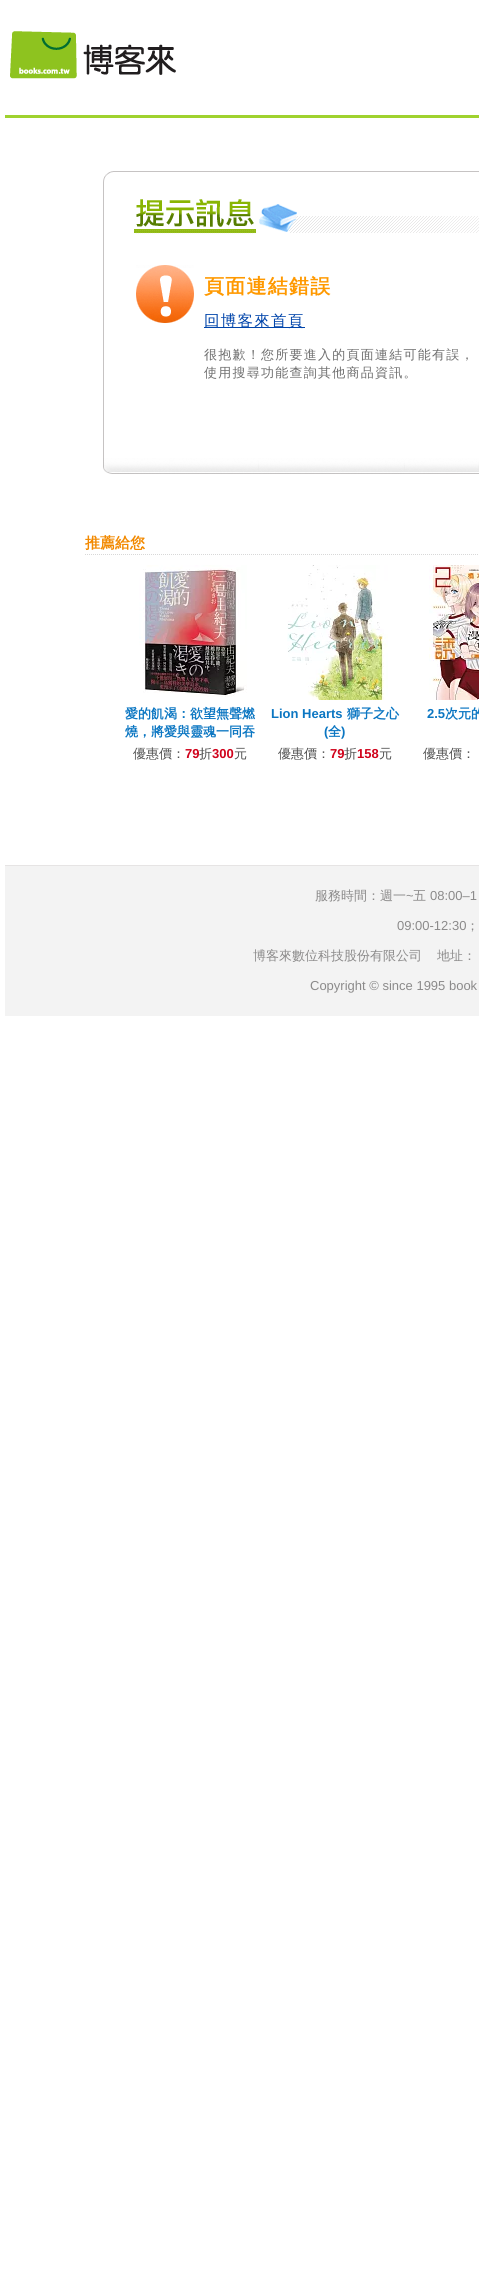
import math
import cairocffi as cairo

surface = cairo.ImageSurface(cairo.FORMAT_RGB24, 479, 2271)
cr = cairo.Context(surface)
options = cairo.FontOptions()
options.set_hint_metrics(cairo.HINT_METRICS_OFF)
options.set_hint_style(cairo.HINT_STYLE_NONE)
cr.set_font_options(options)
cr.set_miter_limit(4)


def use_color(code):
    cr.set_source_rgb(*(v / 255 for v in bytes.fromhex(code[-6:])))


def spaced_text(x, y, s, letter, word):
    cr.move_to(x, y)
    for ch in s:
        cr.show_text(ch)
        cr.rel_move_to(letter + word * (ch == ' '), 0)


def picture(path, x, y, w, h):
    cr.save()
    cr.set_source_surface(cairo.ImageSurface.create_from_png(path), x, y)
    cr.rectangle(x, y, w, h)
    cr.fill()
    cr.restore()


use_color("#ffffff")
cr.paint()
picture("img1.png", 10, 31, 166, 48)
use_color("#9fd22e")
cr.rectangle(5, 115, 474, 3)
cr.fill()
picture("img2.png", 103, 171, 376, 67)
use_color("#c6c3c3")
cr.rectangle(103, 238, 1, 220)
cr.fill()
picture("img3.png", 136, 265, 58, 58)
cr.select_font_face("WenQuanYi Zen Hei", cairo.FONT_SLANT_NORMAL, cairo.FONT_WEIGHT_BOLD)
cr.set_font_size(20)
use_color("#ff9900")
spaced_text(204, 293, "頁面連結錯誤", 1.25, 0)
use_color("#0044aa")
cr.rectangle(204, 327, 101, 1)
cr.fill()
cr.select_font_face("WenQuanYi Zen Hei Medium")
cr.set_font_size(15.5)
spaced_text(204, 326, "回博客來首頁", 1.25, 0)
cr.set_font_size(13)
use_color("#6e6e6e")
spaced_text(204, 359, "很抱歉！您所要進入的頁面連結可能有誤，", 1.25, 0)
spaced_text(204, 377, "使用搜尋功能查詢其他商品資訊。", 1.25, 0)
picture("img4.png", 103, 458, 376, 16)
cr.new_path()
cr.move_to(85, 554.5)
cr.line_to(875, 554.5)
use_color("#d8d8d8")
cr.set_line_width(1)
cr.set_dash([1, 1])
cr.stroke()
cr.select_font_face("WenQuanYi Zen Hei", cairo.FONT_SLANT_NORMAL, cairo.FONT_WEIGHT_BOLD)
cr.set_font_size(15)
use_color("#f28900")
cr.move_to(85, 548)
cr.show_text("推薦給您")
picture("img5.png", 139, 565, 108, 132)
cr.set_font_size(13)
use_color("#0b76c2")
cr.move_to(125, 718)
cr.show_text("愛的飢渴：欲望無聲燃")
cr.move_to(125, 736)
cr.show_text("燒，將愛與靈魂一同吞")
cr.select_font_face("WenQuanYi Zen Hei Medium")
use_color("#4c4c4c")
cr.move_to(133, 758)
cr.show_text("優惠價：")
cr.select_font_face("Liberation Sans", cairo.FONT_SLANT_NORMAL, cairo.FONT_WEIGHT_BOLD)
use_color("#d0021b")
cr.move_to(185, 758)
cr.show_text("79")
cr.select_font_face("WenQuanYi Zen Hei Medium")
use_color("#4c4c4c")
cr.move_to(199, 758)
cr.show_text("折")
cr.select_font_face("Liberation Sans", cairo.FONT_SLANT_NORMAL, cairo.FONT_WEIGHT_BOLD)
use_color("#d0021b")
cr.move_to(212, 758)
cr.show_text("300")
cr.select_font_face("WenQuanYi Zen Hei Medium")
use_color("#4c4c4c")
cr.move_to(234, 758)
cr.show_text("元")
picture("img6.png", 287, 565, 101, 135)
cr.select_font_face("Liberation Sans", cairo.FONT_SLANT_NORMAL, cairo.FONT_WEIGHT_BOLD)
use_color("#0b76c2")
cr.move_to(271, 718)
cr.show_text("Lion Hearts")
cr.select_font_face("WenQuanYi Zen Hei", cairo.FONT_SLANT_NORMAL, cairo.FONT_WEIGHT_BOLD)
cr.move_to(347, 718)
cr.show_text("獅子之心")
cr.select_font_face("Liberation Sans", cairo.FONT_SLANT_NORMAL, cairo.FONT_WEIGHT_BOLD)
cr.move_to(324, 736)
cr.show_text("(")
cr.select_font_face("WenQuanYi Zen Hei", cairo.FONT_SLANT_NORMAL, cairo.FONT_WEIGHT_BOLD)
cr.move_to(328, 736)
cr.show_text("全")
cr.select_font_face("Liberation Sans", cairo.FONT_SLANT_NORMAL, cairo.FONT_WEIGHT_BOLD)
cr.move_to(341, 736)
cr.show_text(")")
cr.select_font_face("WenQuanYi Zen Hei Medium")
use_color("#4c4c4c")
cr.move_to(278, 758)
cr.show_text("優惠價：")
cr.select_font_face("Liberation Sans", cairo.FONT_SLANT_NORMAL, cairo.FONT_WEIGHT_BOLD)
use_color("#d0021b")
cr.move_to(330, 758)
cr.show_text("79")
cr.select_font_face("WenQuanYi Zen Hei Medium")
use_color("#4c4c4c")
cr.move_to(344, 758)
cr.show_text("折")
cr.select_font_face("Liberation Sans", cairo.FONT_SLANT_NORMAL, cairo.FONT_WEIGHT_BOLD)
use_color("#d0021b")
cr.move_to(357, 758)
cr.show_text("158")
cr.select_font_face("WenQuanYi Zen Hei Medium")
use_color("#4c4c4c")
cr.move_to(379, 758)
cr.show_text("元")
picture("img7.png", 429, 565, 50, 135)
cr.select_font_face("Liberation Sans", cairo.FONT_SLANT_NORMAL, cairo.FONT_WEIGHT_BOLD)
use_color("#0b76c2")
cr.move_to(427, 718)
cr.show_text("2.5")
cr.select_font_face("WenQuanYi Zen Hei", cairo.FONT_SLANT_NORMAL, cairo.FONT_WEIGHT_BOLD)
cr.move_to(445, 718)
cr.show_text("次元的")
cr.select_font_face("WenQuanYi Zen Hei Medium")
use_color("#4c4c4c")
cr.move_to(423, 758)
cr.show_text("優惠價：")
use_color("#f3f3f3")
cr.rectangle(5, 866, 474, 150)
cr.fill()
use_color("#e6e4e4")
cr.rectangle(5, 865, 474, 1)
cr.fill()
use_color("#8b8a8a")
cr.move_to(315, 900)
cr.show_text("服務時間：週一")
cr.select_font_face("Liberation Sans")
cr.move_to(406, 900)
cr.show_text("~")
cr.select_font_face("WenQuanYi Zen Hei Medium")
cr.move_to(413, 900)
cr.show_text("五")
cr.select_font_face("Liberation Sans")
cr.move_to(430, 900)
cr.show_text("08:00–1")
cr.move_to(397, 930)
cr.show_text("09:00-12:30")
cr.select_font_face("WenQuanYi Zen Hei Medium")
cr.move_to(466, 930)
cr.show_text("；")
cr.move_to(253, 960)
cr.show_text("博客來數位科技股份有限公司")
cr.move_to(437, 960)
cr.show_text("地址：")
cr.select_font_face("Liberation Sans")
cr.move_to(310, 990)
cr.show_text("Copyright © since 1995 book")
surface.write_to_png("result.png")
